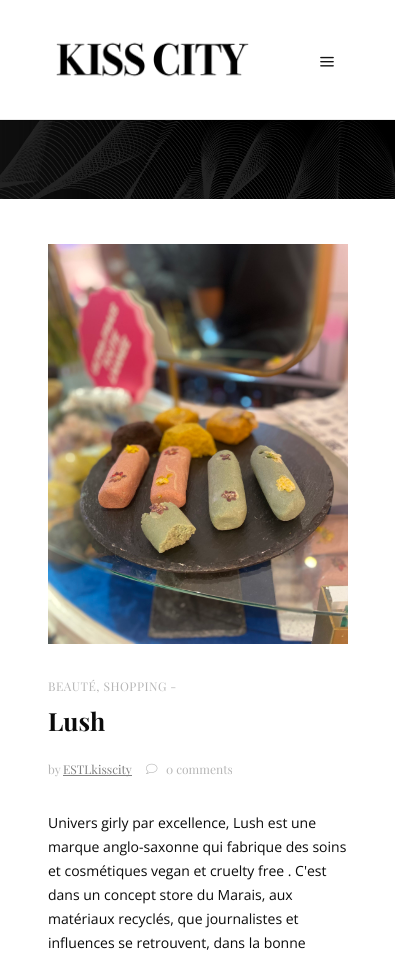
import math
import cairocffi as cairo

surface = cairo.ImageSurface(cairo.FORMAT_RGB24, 395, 957)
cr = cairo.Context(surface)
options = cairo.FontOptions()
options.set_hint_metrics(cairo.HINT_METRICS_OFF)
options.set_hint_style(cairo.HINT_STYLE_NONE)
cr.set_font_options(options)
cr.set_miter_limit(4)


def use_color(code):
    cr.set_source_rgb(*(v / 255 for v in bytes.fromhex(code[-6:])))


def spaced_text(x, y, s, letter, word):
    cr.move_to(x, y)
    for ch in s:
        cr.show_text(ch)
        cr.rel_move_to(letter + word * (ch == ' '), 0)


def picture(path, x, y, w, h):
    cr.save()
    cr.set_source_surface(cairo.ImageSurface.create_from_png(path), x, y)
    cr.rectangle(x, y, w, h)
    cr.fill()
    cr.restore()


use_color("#ffffff")
cr.paint()
use_color("#ebebeb")
cr.rectangle(0, 119, 395, 1)
cr.fill()
picture("img1.png", 56, 42, 193, 35)
picture("img2.png", 320, 56, 14, 11)
picture("img3.png", 0, 120, 395, 79)
picture("img4.png", 48, 244, 300, 400)
cr.select_font_face("Playfair Display")
cr.set_font_size(12)
use_color("#b5b5b5")
spaced_text(48, 691, "BEAUTÉ, SHOPPING -", 0.5, 0)
cr.select_font_face("Playfair Display", cairo.FONT_SLANT_NORMAL, cairo.FONT_WEIGHT_BOLD)
cr.set_font_size(25)
use_color("#0a0a0a")
cr.move_to(48, 731)
cr.show_text("Lush")
cr.select_font_face("Playfair Display")
cr.set_font_size(12)
use_color("#b5b5b5")
cr.move_to(48, 774)
cr.show_text("by")
use_color("#808080")
cr.rectangle(63, 775, 69, 1)
cr.fill()
cr.move_to(63, 774)
cr.show_text("ESTLkisscity")
picture("img5.png", 146, 763, 12, 11)
use_color("#b5b5b5")
cr.move_to(166, 774)
cr.show_text("0 comments")
cr.select_font_face("Open Sans")
cr.set_font_size(14)
use_color("#0a0a0a")
cr.move_to(48, 828)
cr.show_text("Univers girly par excellence, Lush est une")
cr.move_to(48, 852)
cr.show_text("marque anglo-saxonne qui fabrique des soins")
cr.move_to(48, 876)
cr.show_text("et cosmétiques vegan et cruelty free . C'est")
cr.move_to(48, 900)
cr.show_text("dans un concept store du Marais, aux")
cr.move_to(48, 924)
cr.show_text("matériaux recyclés, que journalistes et")
cr.move_to(48, 948)
cr.show_text("influences se retrouvent, dans la bonne")
surface.write_to_png("result.png")
